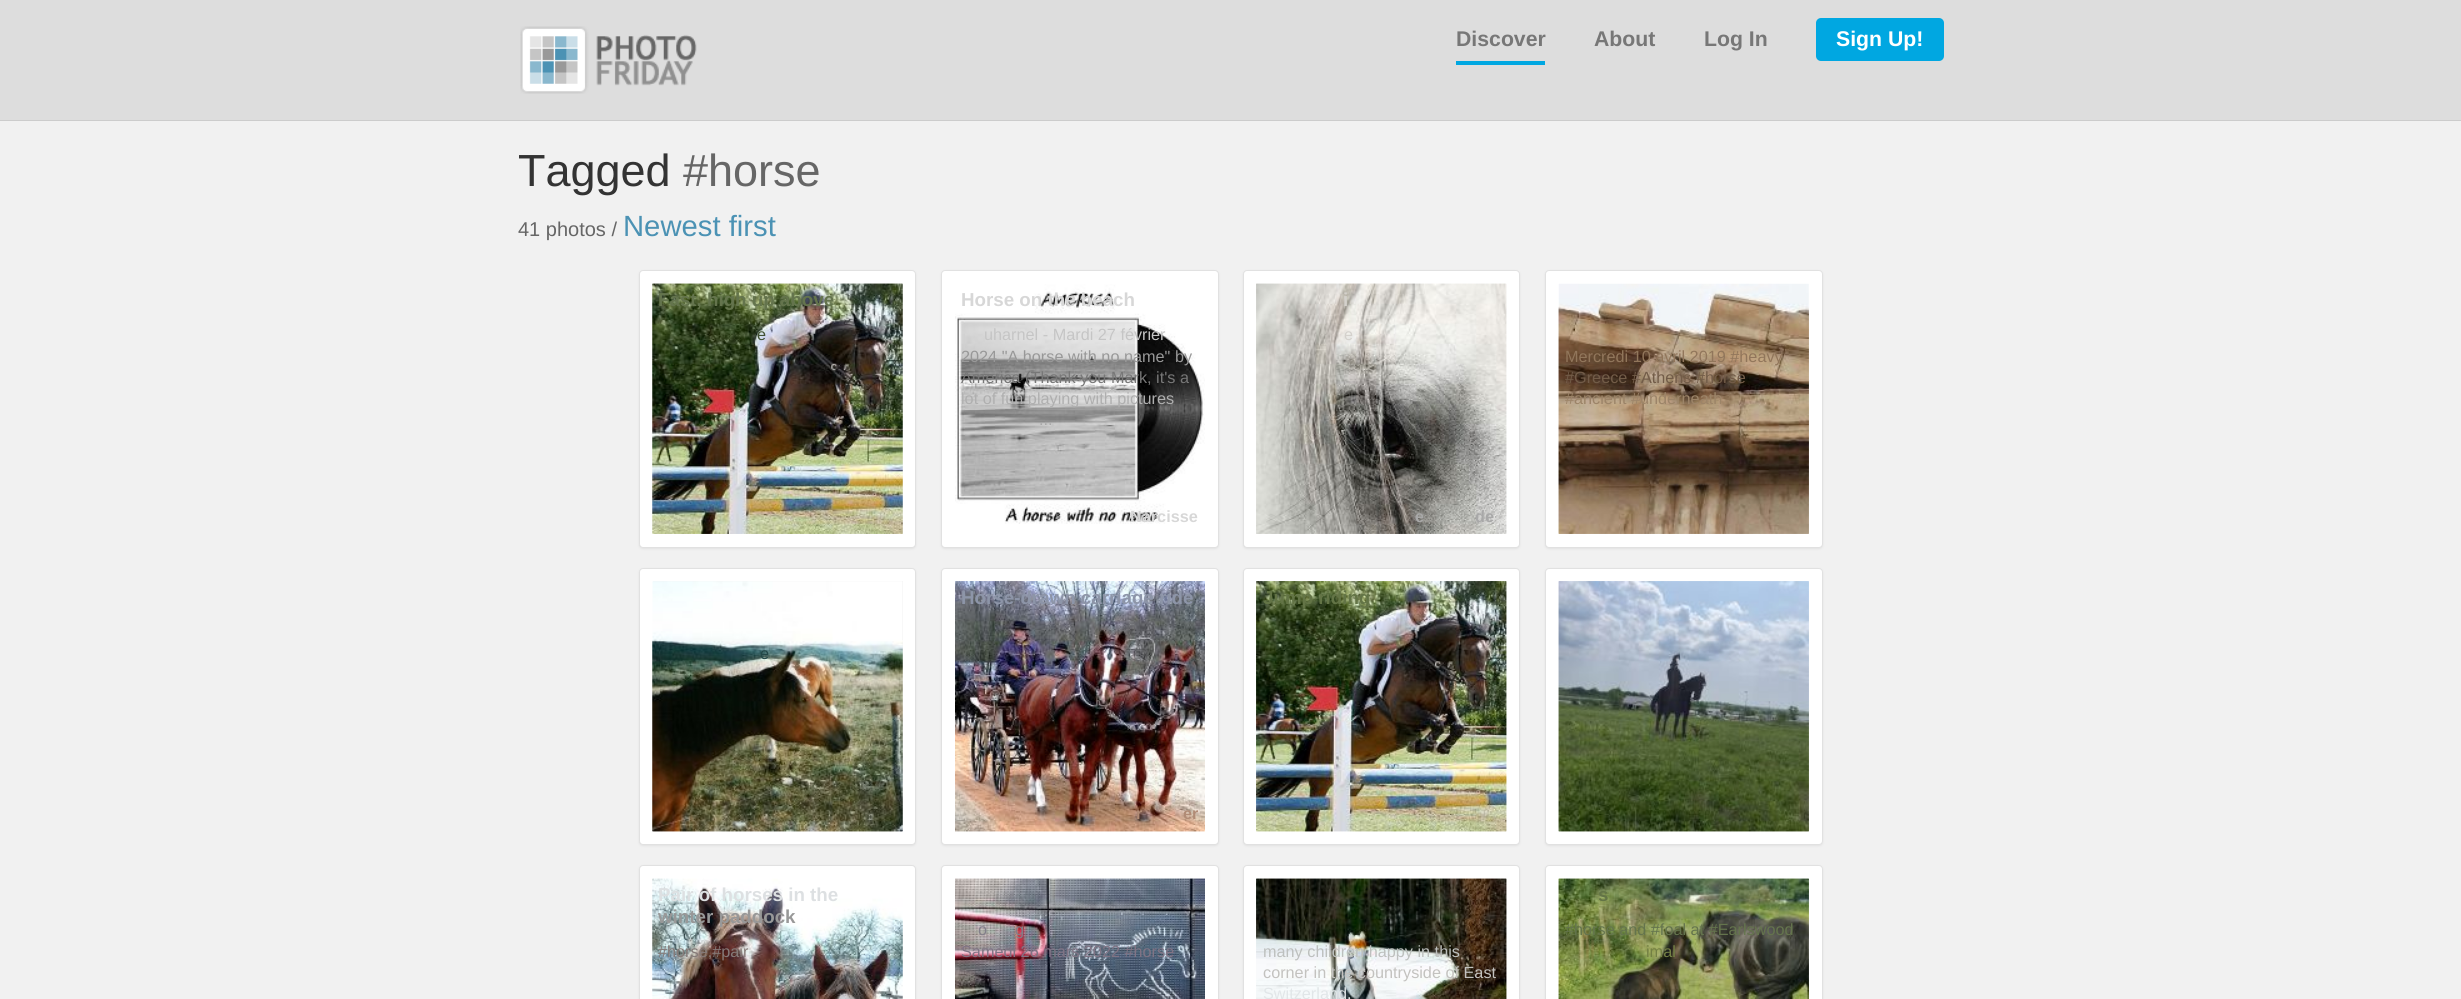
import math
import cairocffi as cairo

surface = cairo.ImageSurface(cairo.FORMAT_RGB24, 2461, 999)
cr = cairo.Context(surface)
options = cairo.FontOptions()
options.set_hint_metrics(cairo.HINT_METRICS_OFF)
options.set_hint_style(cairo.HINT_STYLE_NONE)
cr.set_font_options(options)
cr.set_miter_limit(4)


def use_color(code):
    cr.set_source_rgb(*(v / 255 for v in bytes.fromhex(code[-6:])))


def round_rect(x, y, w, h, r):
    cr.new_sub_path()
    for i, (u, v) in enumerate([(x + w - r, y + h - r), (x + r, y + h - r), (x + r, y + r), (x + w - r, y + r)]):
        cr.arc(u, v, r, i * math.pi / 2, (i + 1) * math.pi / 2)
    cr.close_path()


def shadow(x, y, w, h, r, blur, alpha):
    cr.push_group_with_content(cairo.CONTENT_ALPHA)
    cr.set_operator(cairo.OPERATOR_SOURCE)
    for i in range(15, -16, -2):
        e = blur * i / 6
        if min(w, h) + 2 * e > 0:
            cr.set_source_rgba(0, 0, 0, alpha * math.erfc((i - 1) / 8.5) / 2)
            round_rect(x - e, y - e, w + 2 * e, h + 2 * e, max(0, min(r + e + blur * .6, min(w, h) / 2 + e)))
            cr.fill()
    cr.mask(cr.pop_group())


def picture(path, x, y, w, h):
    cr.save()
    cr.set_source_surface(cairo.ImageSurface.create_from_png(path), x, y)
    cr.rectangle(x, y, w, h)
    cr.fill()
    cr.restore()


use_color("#f1f1f1")
cr.paint()
use_color("#dddddd")
cr.rectangle(0, 0, 2461, 120)
cr.fill()
use_color("#cccccc")
cr.rectangle(0, 120, 2461, 1)
cr.fill()
picture("img1.png", 520, 26, 177, 68)
cr.select_font_face("Liberation Sans", cairo.FONT_SLANT_NORMAL, cairo.FONT_WEIGHT_BOLD)
cr.set_font_size(21.25)
use_color("#777777")
cr.move_to(1456, 46)
cr.show_text("Discover")
use_color("#00a7e1")
cr.rectangle(1456, 61, 89, 4)
cr.fill()
use_color("#777777")
cr.move_to(1594, 46)
cr.show_text("About")
cr.move_to(1704, 46)
cr.show_text("Log In")
use_color("#00a7e1")
round_rect(1816, 18, 128, 43, 5)
cr.fill()
use_color("#ffffff")
cr.move_to(1836, 46)
cr.show_text("Sign Up!")
cr.select_font_face("Liberation Sans")
cr.set_font_size(45)
use_color("#333333")
cr.move_to(518, 186)
cr.show_text("Tagged")
use_color("#666666")
cr.move_to(683, 186)
cr.show_text("#horse")
cr.set_font_size(20)
cr.move_to(518, 236)
cr.show_text("41 photos /")
cr.set_font_size(29.25)
use_color("#4b92b4")
cr.move_to(623, 236)
cr.show_text("Newest first")
use_color("#e1e1e1")
shadow(639, 271, 277, 278, 4, 1, 1)
use_color("#ffffff")
round_rect(639.5, 270.5, 276, 277, 3.5)
cr.fill_preserve()
use_color("#e1e1e1")
cr.set_line_width(1)
cr.stroke()
use_color("#f1f1f1")
cr.rectangle(653, 284, 250, 250)
cr.fill()
picture("img2.png", 652, 283, 251, 251)
picture("img3.png", 652, 283, 251, 251)
cr.select_font_face("Liberation Sans", cairo.FONT_SLANT_NORMAL, cairo.FONT_WEIGHT_BOLD)
cr.set_font_size(18.75)
use_color("#64744d")
cr.move_to(658, 306)
cr.show_text("Fast, high up above")
cr.select_font_face("Liberation Sans")
cr.set_font_size(16.25)
use_color("#415133")
cr.move_to(757, 340)
cr.show_text("e")
use_color("#e1e1e1")
shadow(941, 271, 278, 278, 4, 1, 1)
use_color("#ffffff")
round_rect(941.5, 270.5, 277, 277, 3.5)
cr.fill_preserve()
use_color("#e1e1e1")
cr.stroke()
picture("img4.png", 955, 284, 250, 250)
cr.select_font_face("Liberation Sans", cairo.FONT_SLANT_NORMAL, cairo.FONT_WEIGHT_BOLD)
cr.set_font_size(18.75)
use_color("#d7d7d7")
cr.move_to(961, 306)
cr.show_text("Horse on the beach")
cr.select_font_face("Liberation Sans")
cr.set_font_size(16.25)
use_color("#c5c5c5")
cr.move_to(984, 340)
cr.show_text("uharnel - Mardi 27 février")
use_color("#989898")
cr.move_to(961, 362)
cr.show_text("2024 \"A horse with no name\" by")
use_color("#777777")
cr.move_to(961, 383)
cr.show_text("America (Thank you Mark, it's a")
use_color("#afafaf")
cr.move_to(961, 404)
cr.show_text("lot of fun playing with pictures")
use_color("#a8a8a8")
cr.move_to(1039, 425)
cr.show_text("...")
cr.select_font_face("Liberation Sans", cairo.FONT_SLANT_NORMAL, cairo.FONT_WEIGHT_BOLD)
use_color("#d7d7d7")
cr.move_to(1130, 522)
cr.show_text("Narcisse")
use_color("#e1e1e1")
shadow(1243, 271, 277, 278, 4, 1, 1)
use_color("#ffffff")
round_rect(1243.5, 270.5, 276, 277, 3.5)
cr.fill_preserve()
use_color("#e1e1e1")
cr.stroke()
picture("img5.png", 1256, 283, 251, 251)
picture("img6.png", 1256, 283, 251, 251)
cr.set_font_size(18.75)
use_color("#d4d1cc")
cr.move_to(1343, 306)
cr.show_text("i")
cr.select_font_face("Liberation Sans")
cr.set_font_size(16.25)
cr.move_to(1344, 340)
cr.show_text("e")
cr.select_font_face("Liberation Sans", cairo.FONT_SLANT_NORMAL, cairo.FONT_WEIGHT_BOLD)
use_color("#a8a8a8")
cr.move_to(1415, 522)
cr.show_text("e")
cr.move_to(1475, 522)
cr.show_text("de")
use_color("#e1e1e1")
shadow(1545, 271, 278, 278, 4, 1, 1)
use_color("#ffffff")
round_rect(1545.5, 270.5, 277, 277, 3.5)
cr.fill_preserve()
use_color("#e1e1e1")
cr.stroke()
picture("img7.png", 1558, 283, 251, 251)
picture("img8.png", 1558, 307, 251, 227)
cr.select_font_face("Liberation Sans")
use_color("#91765b")
cr.move_to(1565, 362)
cr.show_text("Mercredi 10 avril 2019 #heavy")
use_color("#725c48")
cr.move_to(1565, 383)
cr.show_text("#Greece #Athens #horse")
use_color("#9c8468")
cr.move_to(1565, 404)
cr.show_text("#ancient #underneath")
use_color("#e1e1e1")
shadow(941, 569, 278, 277, 4, 1, 1)
use_color("#ffffff")
round_rect(941.5, 568.5, 277, 276, 3.5)
cr.fill_preserve()
use_color("#e1e1e1")
cr.stroke()
picture("img9.png", 955, 581, 250, 251)
picture("img10.png", 955, 581, 250, 251)
cr.select_font_face("Liberation Sans", cairo.FONT_SLANT_NORMAL, cairo.FONT_WEIGHT_BOLD)
cr.set_font_size(18.75)
use_color("#8d95a8")
cr.move_to(961, 604)
cr.show_text("Horse-drawn carriage ride")
cr.set_font_size(16.25)
use_color("#b18b75")
cr.move_to(1136, 819)
cr.show_text("r")
cr.move_to(1183, 819)
cr.show_text("er")
use_color("#e1e1e1")
shadow(1243, 569, 277, 277, 4, 1, 1)
use_color("#ffffff")
round_rect(1243.5, 568.5, 276, 276, 3.5)
cr.fill_preserve()
use_color("#e1e1e1")
cr.stroke()
picture("img11.png", 1256, 581, 251, 251)
picture("img12.png", 1256, 581, 251, 251)
cr.set_font_size(18.75)
use_color("#637446")
cr.move_to(1263, 604)
cr.show_text("Jump riding")
use_color("#e1e1e1")
shadow(1545, 569, 278, 277, 4, 1, 1)
use_color("#ffffff")
round_rect(1545.5, 568.5, 277, 276, 3.5)
cr.fill_preserve()
use_color("#e1e1e1")
cr.stroke()
picture("img13.png", 1558, 581, 251, 251)
picture("img14.png", 1558, 581, 251, 251)
use_color("#e1e1e1")
shadow(639, 569, 277, 277, 4, 1, 1)
use_color("#ffffff")
round_rect(639.5, 568.5, 276, 276, 3.5)
cr.fill_preserve()
use_color("#e1e1e1")
cr.stroke()
use_color("#f1f1f1")
cr.rectangle(653, 581, 250, 250)
cr.fill()
picture("img15.png", 652, 581, 251, 251)
picture("img16.png", 652, 640, 251, 192)
cr.select_font_face("Liberation Sans")
cr.set_font_size(16.25)
use_color("#244747")
cr.move_to(760, 659)
cr.show_text("e")
use_color("#e1e1e1")
shadow(639, 866, 277, 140, 4, 1, 1)
use_color("#ffffff")
round_rect(639.5, 865.5, 276, 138, 3.5)
cr.fill_preserve()
use_color("#e1e1e1")
cr.stroke()
picture("img17.png", 652, 878, 251, 121)
picture("img18.png", 652, 878, 251, 121)
cr.select_font_face("Liberation Sans", cairo.FONT_SLANT_NORMAL, cairo.FONT_WEIGHT_BOLD)
cr.set_font_size(18.75)
use_color("#dde0e2")
cr.move_to(658, 901)
cr.show_text("Pair of horses in the")
use_color("#989898")
cr.move_to(658, 923)
cr.show_text("winter paddock")
cr.select_font_face("Liberation Sans")
cr.set_font_size(16.25)
use_color("#857a78")
cr.move_to(658, 957)
cr.show_text("#horse,#pair")
use_color("#e1e1e1")
shadow(941, 866, 278, 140, 4, 1, 1)
use_color("#ffffff")
round_rect(941.5, 865.5, 277, 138, 3.5)
cr.fill_preserve()
use_color("#e1e1e1")
cr.stroke()
picture("img19.png", 955, 878, 250, 121)
picture("img20.png", 955, 878, 250, 1)
use_color("#837f8a")
cr.move_to(978, 935)
cr.show_text("o")
cr.move_to(1015, 935)
cr.show_text("g")
use_color("#817485")
cr.move_to(961, 957)
cr.show_text("Samedi 26 mars 2022 #horse")
use_color("#e1e1e1")
shadow(1243, 866, 277, 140, 4, 1, 1)
use_color("#ffffff")
round_rect(1243.5, 865.5, 276, 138, 3.5)
cr.fill_preserve()
use_color("#e1e1e1")
cr.stroke()
picture("img21.png", 1256, 878, 251, 121)
picture("img22.png", 1256, 878, 251, 121)
use_color("#bdc0be")
cr.move_to(1263, 957)
cr.show_text("many children happy in this")
use_color("#c3c2bf")
cr.move_to(1263, 978)
cr.show_text("corner in the countryside of East")
use_color("#e1e6e8")
cr.move_to(1263, 999)
cr.show_text("Switzerland.")
use_color("#e1e1e1")
shadow(1545, 866, 278, 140, 4, 1, 1)
use_color("#ffffff")
round_rect(1545.5, 865.5, 277, 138, 3.5)
cr.fill_preserve()
use_color("#e1e1e1")
cr.stroke()
picture("img23.png", 1558, 878, 251, 121)
picture("img24.png", 1558, 878, 251, 121)
cr.select_font_face("Liberation Sans", cairo.FONT_SLANT_NORMAL, cairo.FONT_WEIGHT_BOLD)
cr.set_font_size(18.75)
use_color("#637446")
cr.move_to(1598, 901)
cr.show_text("s")
cr.select_font_face("Liberation Sans")
cr.set_font_size(16.25)
use_color("#64744d")
cr.move_to(1565, 935)
cr.show_text("#horse and #foal at #Earlswood")
use_color("#738044")
cr.move_to(1646, 957)
cr.show_text("imal")
surface.write_to_png("result.png")
